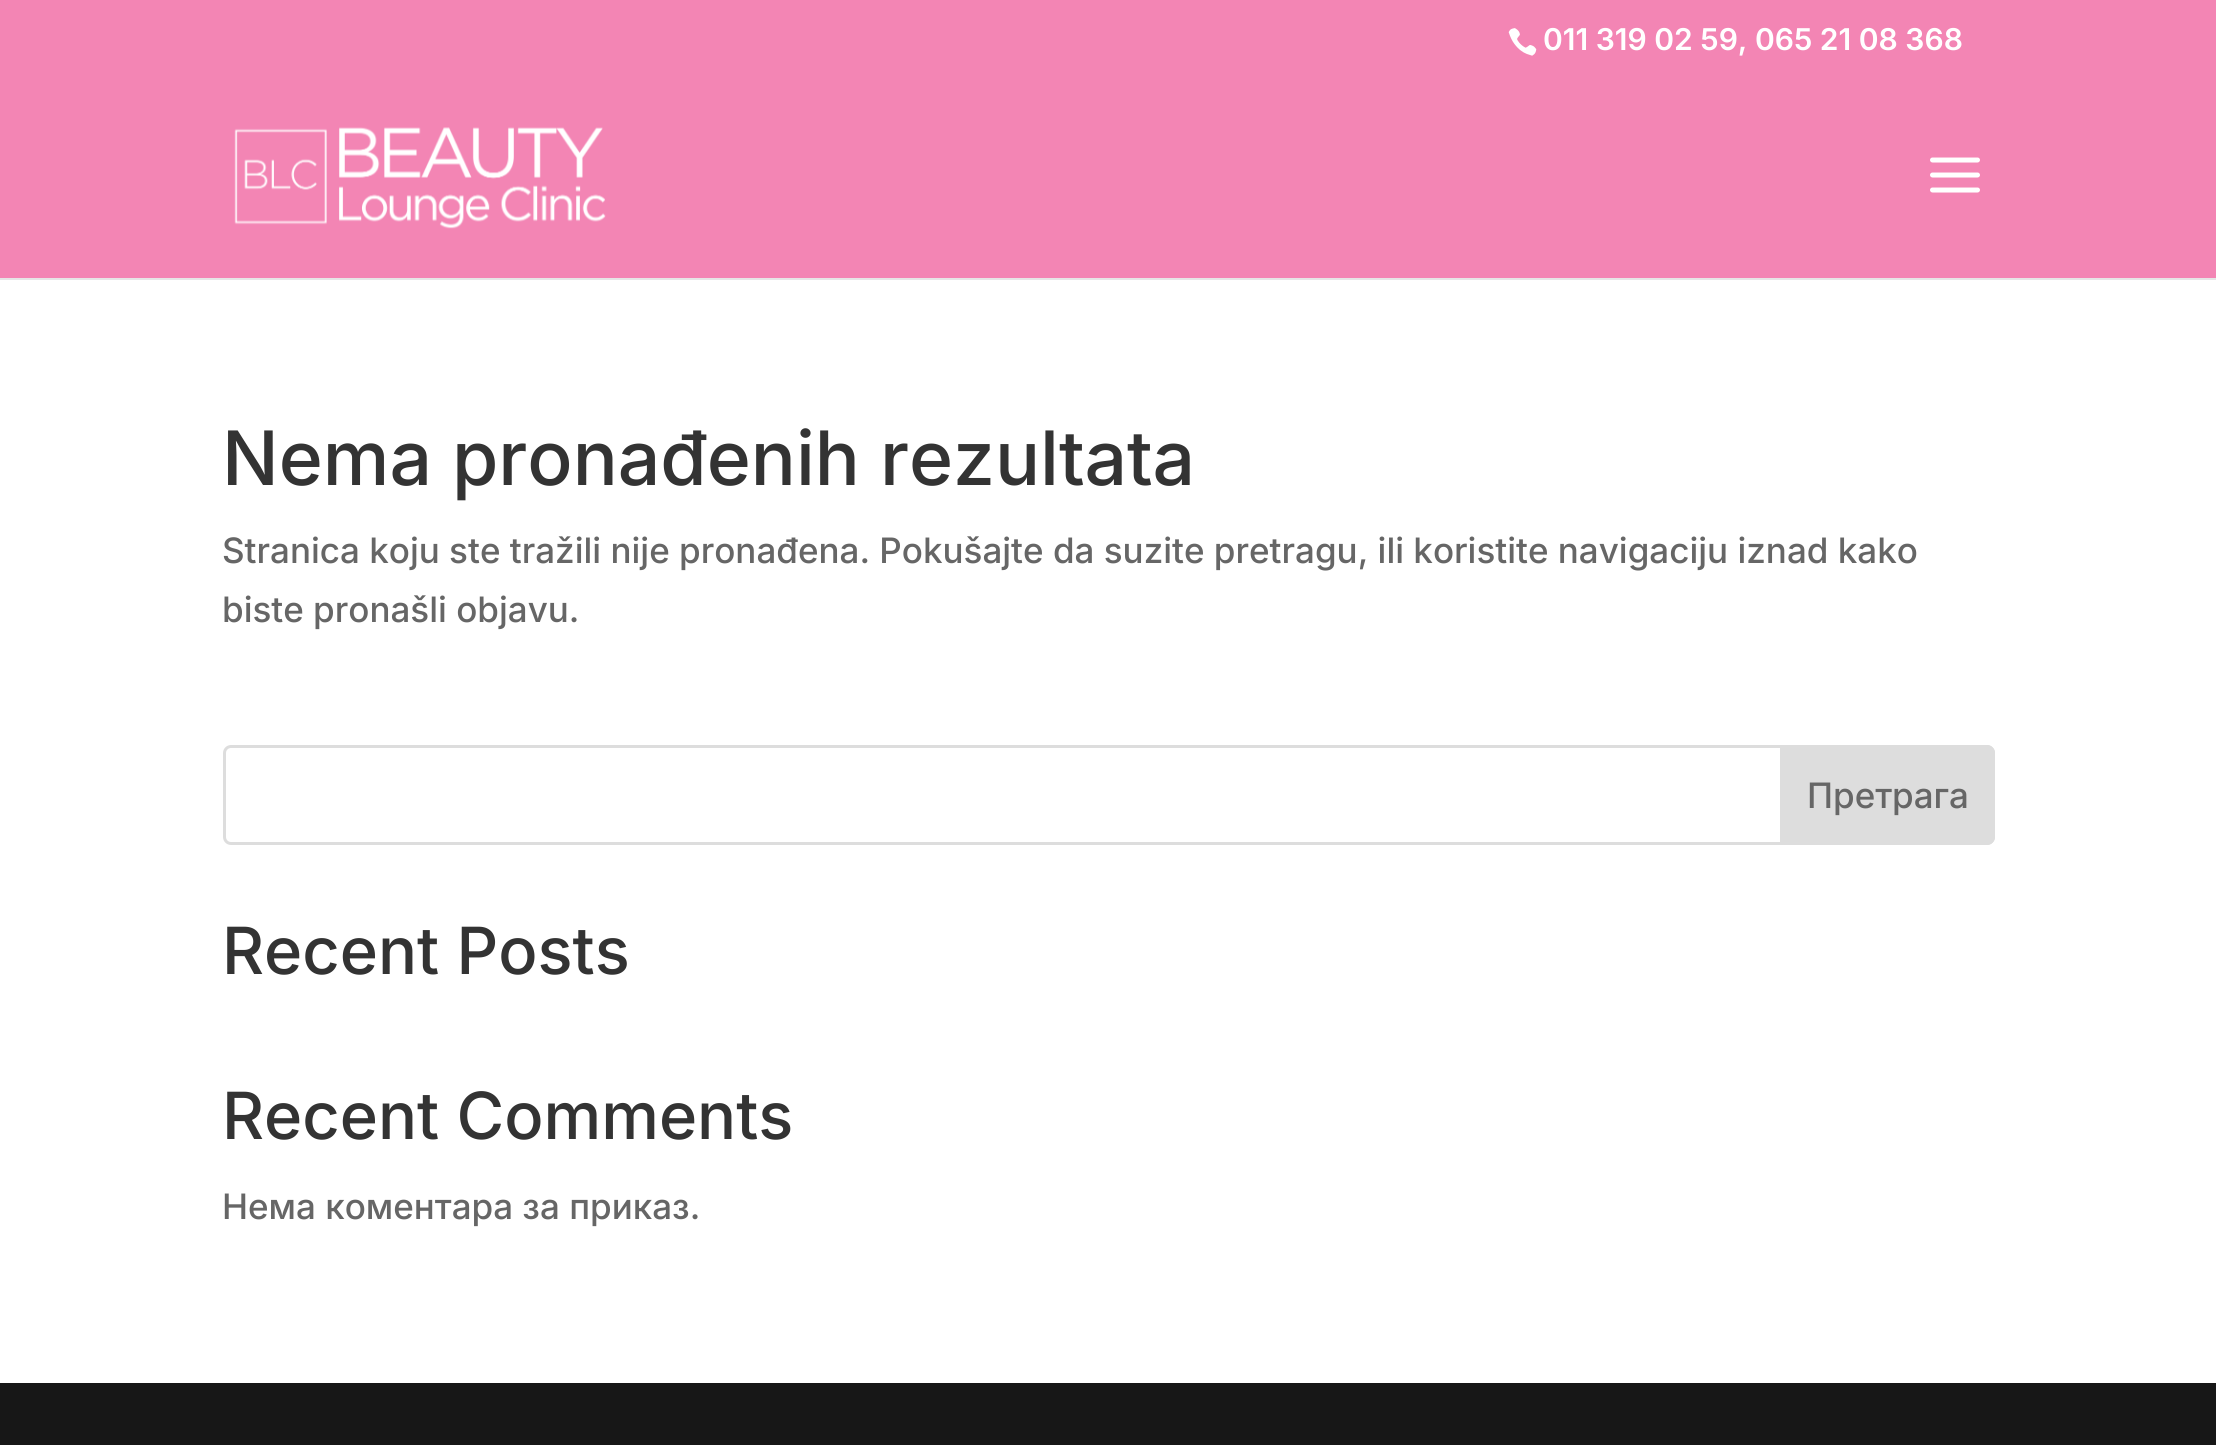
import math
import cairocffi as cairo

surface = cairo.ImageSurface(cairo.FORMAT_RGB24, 2216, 1447)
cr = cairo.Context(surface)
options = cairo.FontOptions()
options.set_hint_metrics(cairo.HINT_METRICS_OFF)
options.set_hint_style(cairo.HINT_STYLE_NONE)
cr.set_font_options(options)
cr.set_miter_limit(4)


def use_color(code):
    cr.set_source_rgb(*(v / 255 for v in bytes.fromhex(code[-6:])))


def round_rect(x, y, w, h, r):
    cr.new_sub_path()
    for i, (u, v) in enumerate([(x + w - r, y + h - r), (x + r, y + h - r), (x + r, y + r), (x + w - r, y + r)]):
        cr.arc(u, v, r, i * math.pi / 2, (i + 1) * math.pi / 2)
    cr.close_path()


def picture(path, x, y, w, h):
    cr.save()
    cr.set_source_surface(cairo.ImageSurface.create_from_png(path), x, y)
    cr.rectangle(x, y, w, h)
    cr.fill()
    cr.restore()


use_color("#ffffff")
cr.paint()
use_color("#e6e6e6")
cr.new_path()
cr.move_to(0, 278)
cr.line_to(0, 280)
cr.line_to(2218, 280)
cr.line_to(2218, 80)
cr.line_to(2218, 278)
cr.close_path()
cr.fill()
use_color("#f385b4")
cr.rectangle(0, 0, 2216, 278)
cr.fill()
picture("img1.png", 234, 127, 372, 102)
picture("img2.png", 1930, 157, 50, 36)
picture("img3.png", 1508, 28, 29, 28)
cr.select_font_face("Inter SemiBold")
cr.set_font_size(30)
use_color("#ffffff")
cr.move_to(1543, 50)
cr.show_text("011 319 02 59, 065 21 08 368")
cr.select_font_face("Inter Medium")
cr.set_font_size(75)
use_color("#333333")
cr.move_to(222, 485)
cr.show_text("Nema pronađenih rezultata")
cr.set_font_size(35)
use_color("#666666")
cr.move_to(222, 563)
cr.show_text("Stranica koju ste tražili nije pronađena. Pokušajte da suzite pretragu, ili koristite navigaciju iznad kako")
cr.move_to(222, 622)
cr.show_text("biste pronašli objavu.")
round_rect(224.5, 746.5, 1769, 97, 6.5)
use_color("#dddddd")
cr.set_line_width(3)
cr.stroke()
cr.new_path()
cr.move_to(1781.5, 746.5)
cr.line_to(1987, 746.5)
cr.curve_to(1990.5, 746.5, 1993.5, 749.5, 1993.5, 753)
cr.line_to(1993.5, 837)
cr.curve_to(1993.5, 840.5, 1990.5, 843.5, 1987, 843.5)
cr.line_to(1781.5, 843.5)
cr.close_path()
cr.fill_preserve()
cr.stroke()
use_color("#666666")
cr.move_to(1807, 808)
cr.show_text("Претрага")
cr.set_font_size(65)
use_color("#333333")
cr.move_to(222, 974)
cr.show_text("Recent Posts")
cr.move_to(222, 1139)
cr.show_text("Recent Comments")
cr.set_font_size(35)
use_color("#666666")
cr.move_to(222, 1219)
cr.show_text("Нема коментара за приказ.")
use_color("#171717")
cr.rectangle(0, 1383, 2216, 62)
cr.fill()
surface.write_to_png("result.png")
